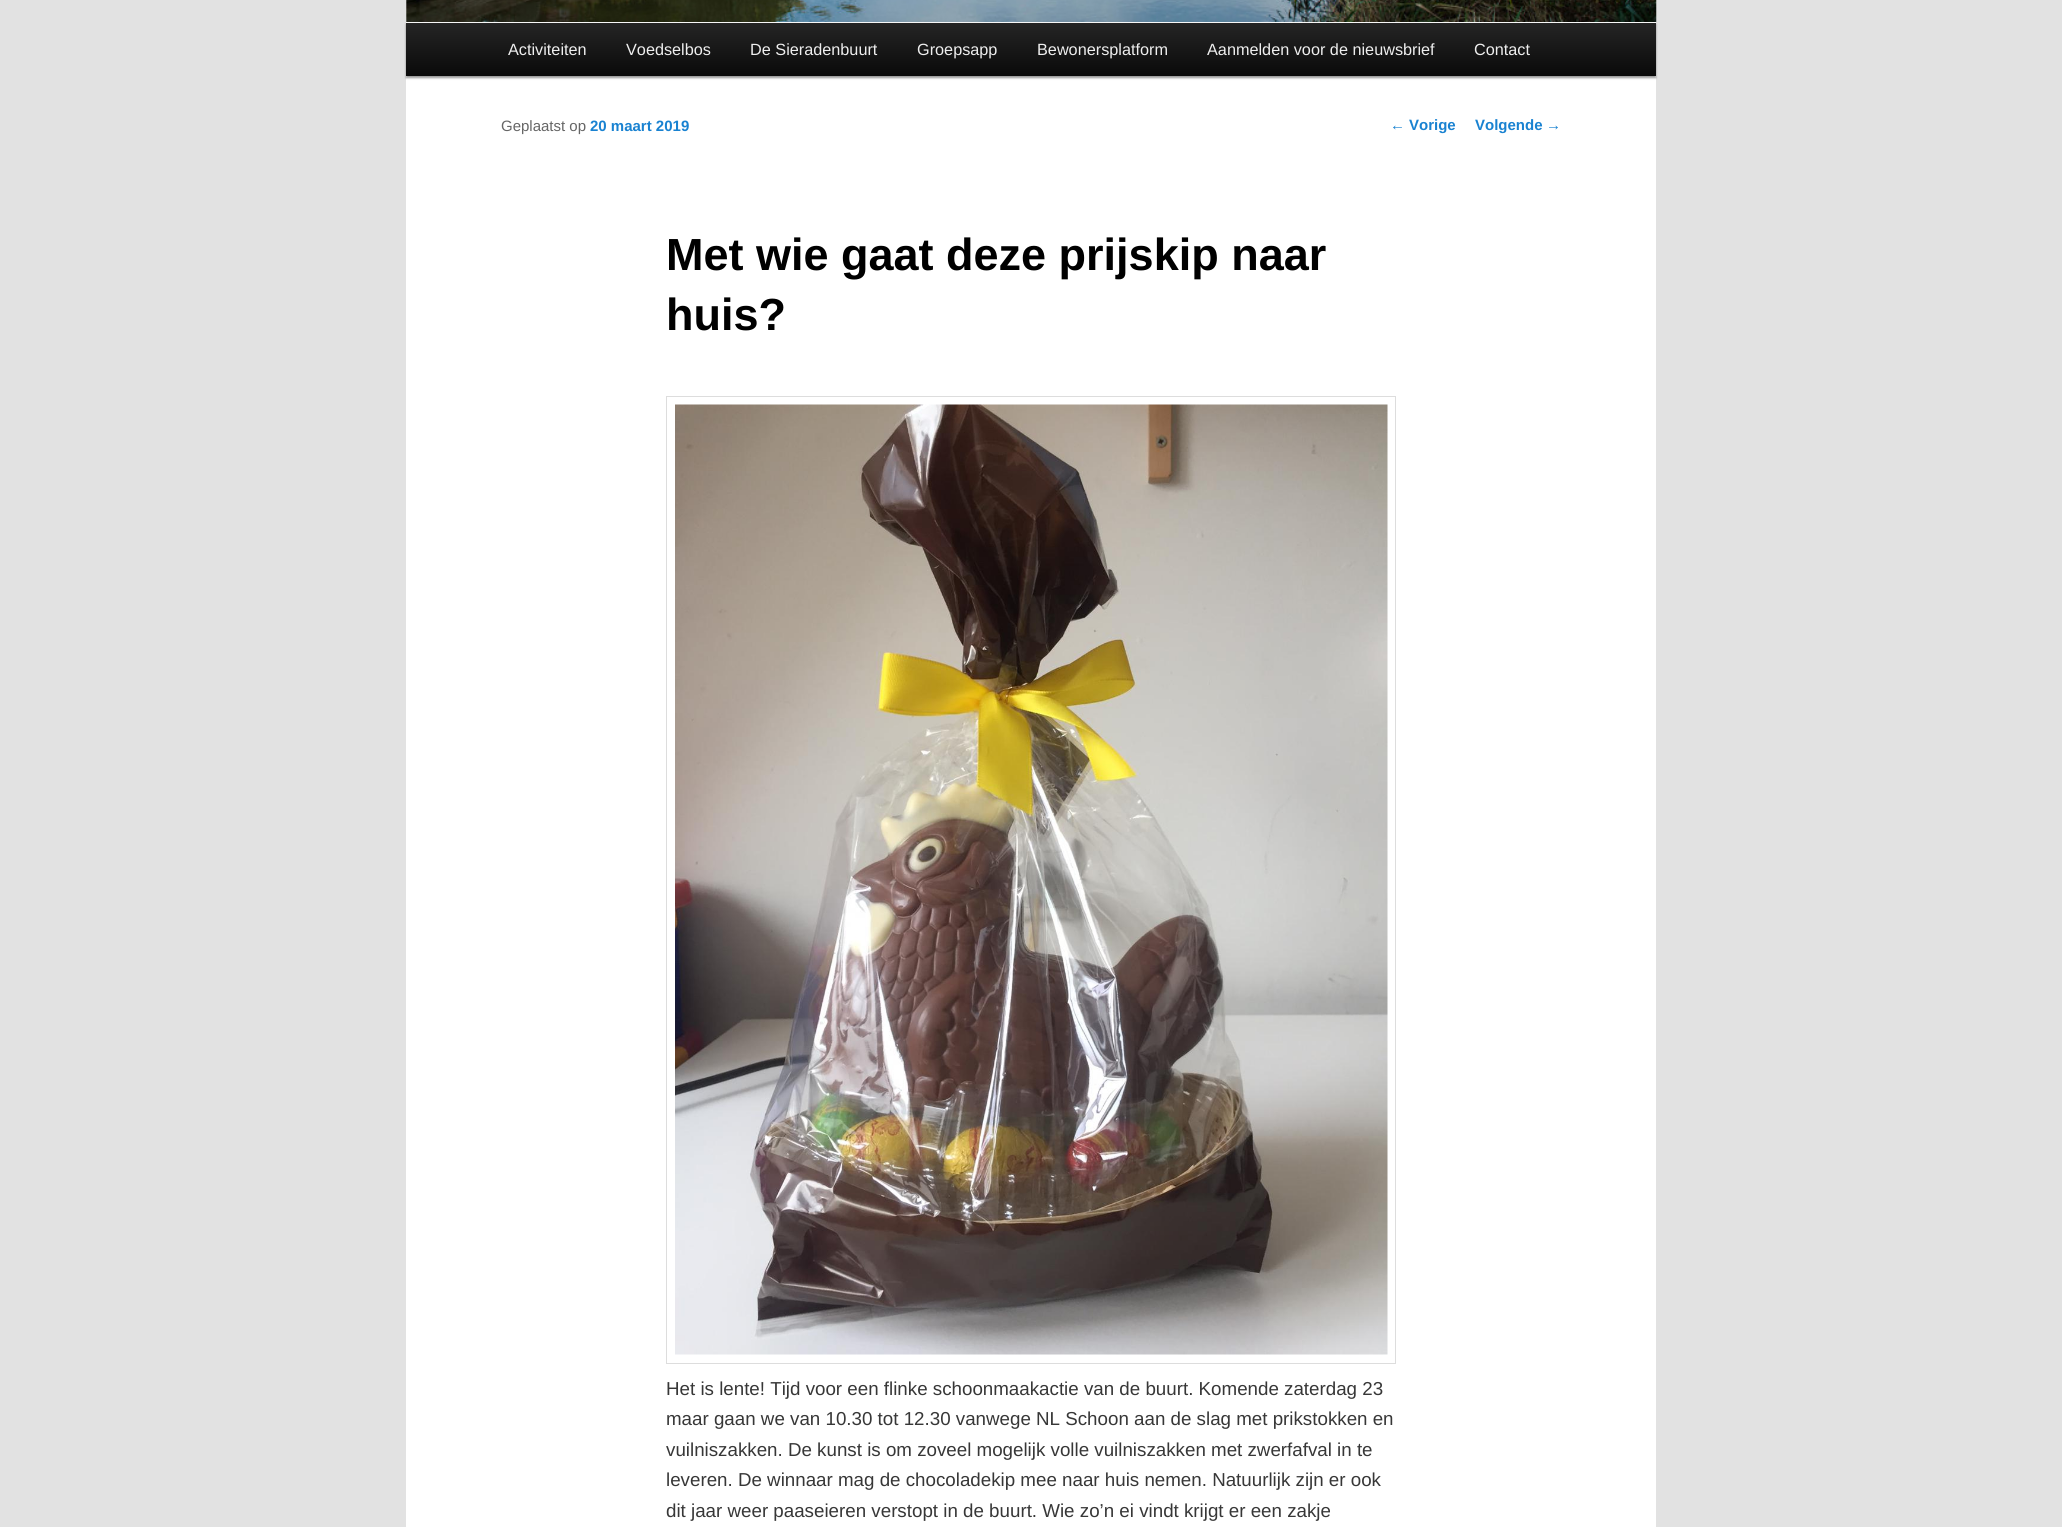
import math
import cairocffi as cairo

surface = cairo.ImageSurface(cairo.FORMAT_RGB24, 2062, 1527)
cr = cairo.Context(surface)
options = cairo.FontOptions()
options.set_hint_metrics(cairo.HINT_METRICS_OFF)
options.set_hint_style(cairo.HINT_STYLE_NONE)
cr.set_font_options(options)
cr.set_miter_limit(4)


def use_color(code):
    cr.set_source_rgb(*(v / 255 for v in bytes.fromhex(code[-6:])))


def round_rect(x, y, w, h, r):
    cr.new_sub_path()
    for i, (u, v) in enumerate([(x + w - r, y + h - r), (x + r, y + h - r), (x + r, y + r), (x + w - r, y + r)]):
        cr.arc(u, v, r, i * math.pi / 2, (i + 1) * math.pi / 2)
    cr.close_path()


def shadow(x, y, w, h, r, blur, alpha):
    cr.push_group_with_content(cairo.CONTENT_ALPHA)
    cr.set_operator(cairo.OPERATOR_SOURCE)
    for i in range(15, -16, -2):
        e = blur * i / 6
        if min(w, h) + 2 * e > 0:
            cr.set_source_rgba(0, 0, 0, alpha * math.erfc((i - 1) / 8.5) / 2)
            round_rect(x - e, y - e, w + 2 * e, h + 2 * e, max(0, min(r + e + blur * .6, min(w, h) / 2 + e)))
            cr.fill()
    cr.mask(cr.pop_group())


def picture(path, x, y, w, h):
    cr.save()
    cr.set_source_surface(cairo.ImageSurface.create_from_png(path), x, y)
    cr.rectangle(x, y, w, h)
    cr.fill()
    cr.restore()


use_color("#e2e2e2")
cr.paint()
use_color("#ffffff")
cr.rectangle(406, 0, 1250, 1527)
cr.fill()
use_color("#000000")
shadow(406, 24, 1250, 54, 0, 1, 0.4)
picture("img1.png", 406, 0, 1251, 22)
gradient = cairo.LinearGradient(1031, 22, 1031, 76)
gradient.add_color_stop_rgba(0, 0.145, 0.145, 0.145, 1)
gradient.add_color_stop_rgba(1, 0.039, 0.039, 0.039, 1)
cr.set_source(gradient)
cr.rectangle(406, 23, 1250, 53)
cr.fill()
cr.select_font_face("Liberation Sans")
cr.set_font_size(16.25)
use_color("#eeeeee")
cr.move_to(508, 55)
cr.show_text("Activiteiten")
cr.move_to(626, 55)
cr.show_text("Voedselbos")
cr.move_to(750, 55)
cr.show_text("De Sieradenbuurt")
cr.move_to(917, 55)
cr.show_text("Groepsapp")
cr.move_to(1037, 55)
cr.show_text("Bewonersplatform")
cr.move_to(1207, 55)
cr.show_text("Aanmelden voor de nieuwsbrief")
cr.move_to(1474, 55)
cr.show_text("Contact")
cr.set_font_size(15)
use_color("#666666")
cr.move_to(501, 131)
cr.show_text("Geplaatst op")
cr.select_font_face("Liberation Sans", cairo.FONT_SLANT_NORMAL, cairo.FONT_WEIGHT_BOLD)
use_color("#1982d1")
cr.move_to(590, 131)
cr.show_text("20 maart 2019")
cr.set_font_size(45)
use_color("#000000")
cr.move_to(666, 270)
cr.show_text("Met wie gaat deze prijskip naar")
cr.move_to(666, 330)
cr.show_text("huis?")
cr.rectangle(666.5, 396.5, 729, 967)
use_color("#dddddd")
cr.set_line_width(1)
cr.stroke()
picture("img2.png", 675, 404, 713, 951)
cr.select_font_face("Liberation Sans")
cr.set_font_size(18.75)
use_color("#373737")
cr.move_to(666, 1395)
cr.show_text("Het is lente! Tijd voor een flinke schoonmaakactie van de buurt. Komende zaterdag 23")
cr.move_to(666, 1425)
cr.show_text("maar gaan we van 10.30 tot 12.30 vanwege NL Schoon aan de slag met prikstokken en")
cr.move_to(666, 1456)
cr.show_text("vuilniszakken. De kunst is om zoveel mogelijk volle vuilniszakken met zwerfafval in te")
cr.move_to(666, 1486)
cr.show_text("leveren. De winnaar mag de chocoladekip mee naar huis nemen. Natuurlijk zijn er ook")
cr.move_to(666, 1517)
cr.show_text("dit jaar weer paaseieren verstopt in de buurt. Wie zo’n ei vindt krijgt er een zakje")
cr.set_font_size(15)
use_color("#1982d1")
cr.move_to(1390, 130)
cr.show_text("←")
cr.select_font_face("Liberation Sans", cairo.FONT_SLANT_NORMAL, cairo.FONT_WEIGHT_BOLD)
cr.move_to(1409, 130)
cr.show_text("Vorige")
cr.move_to(1475, 130)
cr.show_text("Volgende")
cr.select_font_face("Liberation Sans")
cr.move_to(1546, 130)
cr.show_text("→")
surface.write_to_png("result.png")
